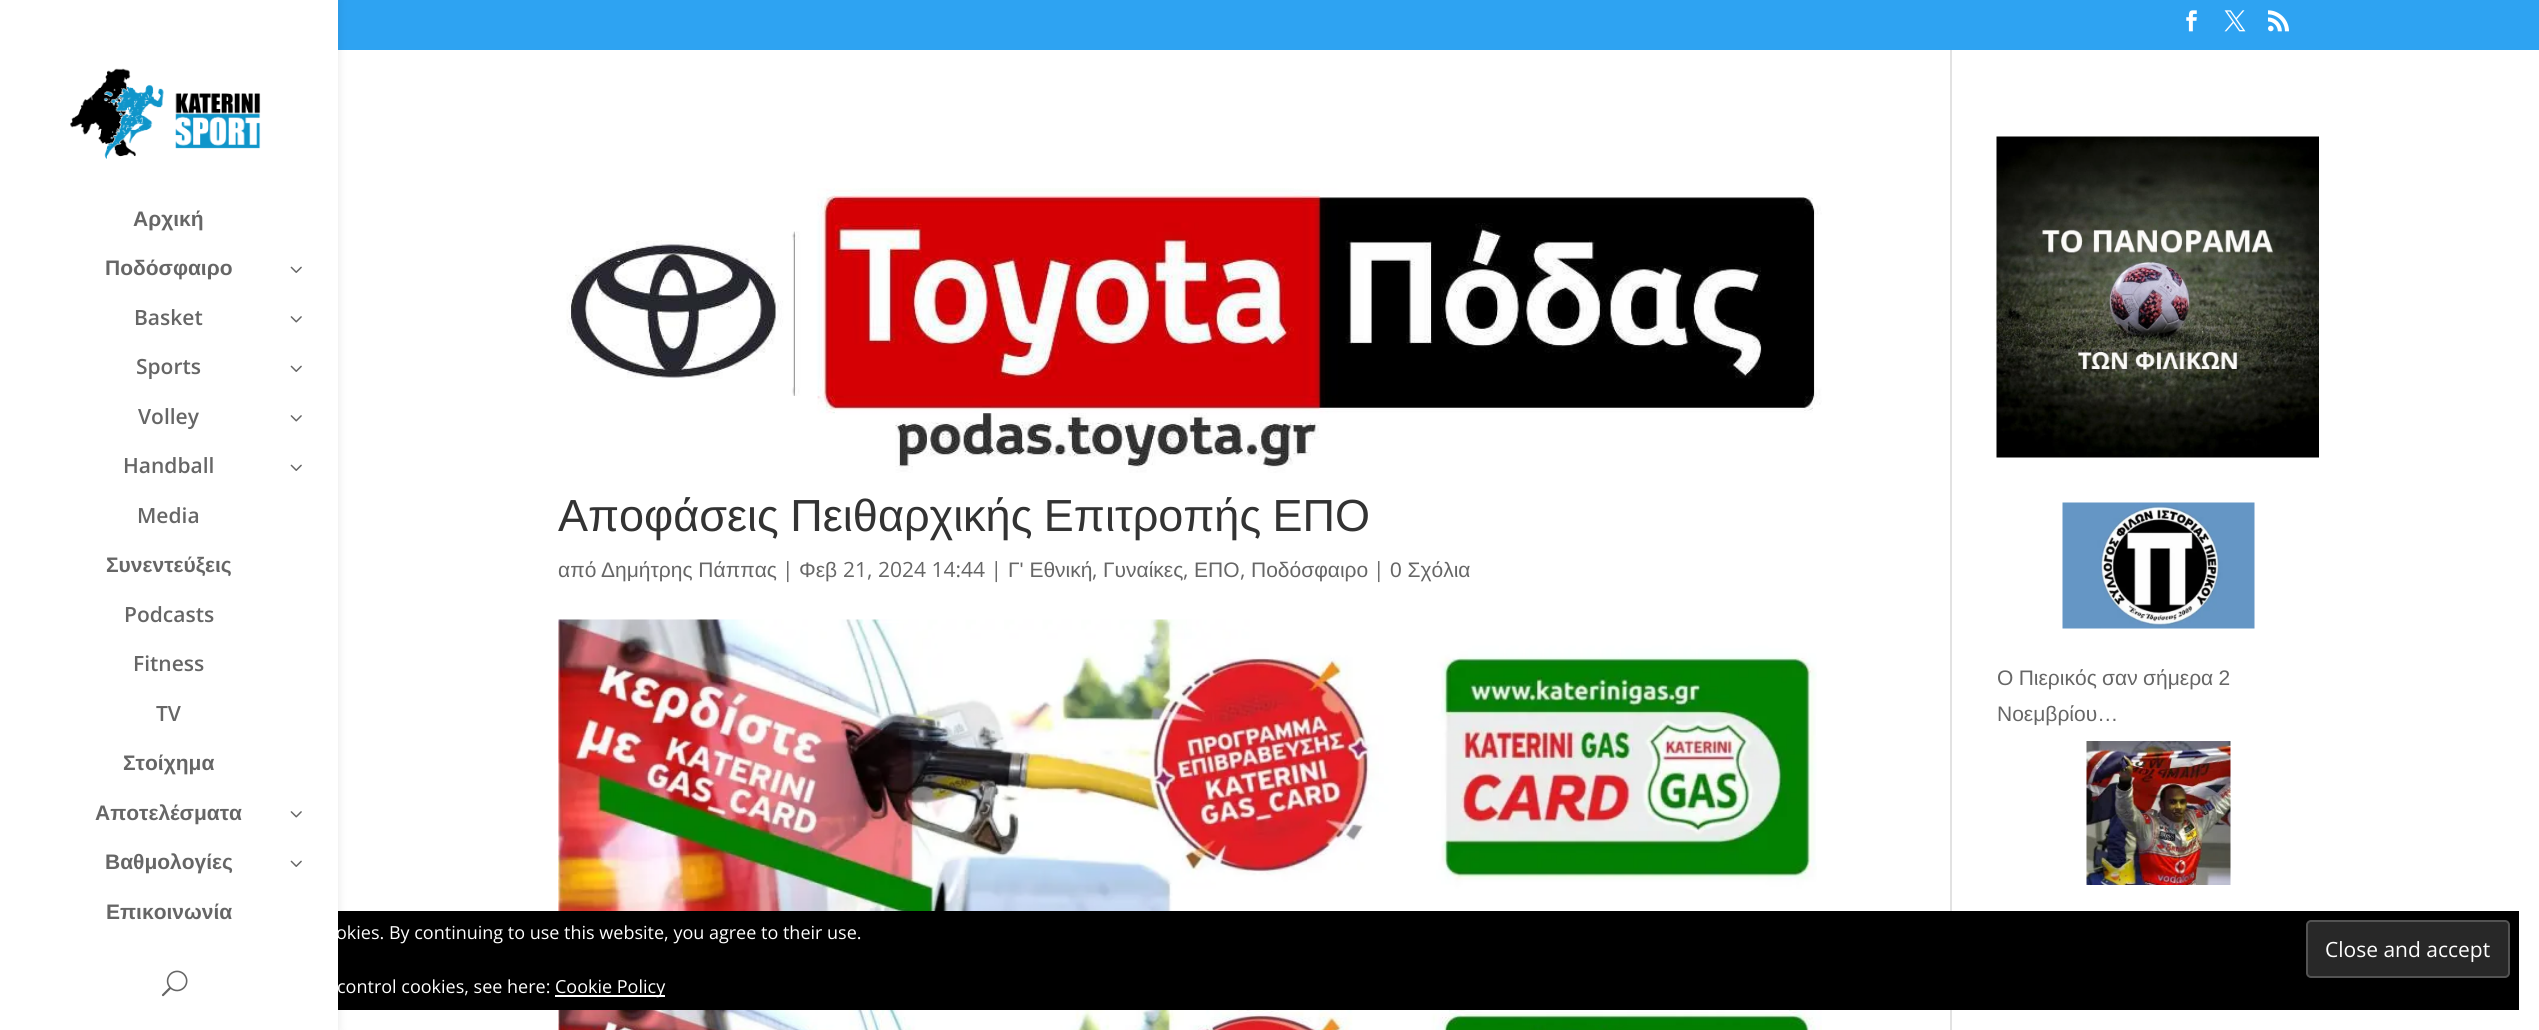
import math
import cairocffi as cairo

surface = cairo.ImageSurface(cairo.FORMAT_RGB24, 2539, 1030)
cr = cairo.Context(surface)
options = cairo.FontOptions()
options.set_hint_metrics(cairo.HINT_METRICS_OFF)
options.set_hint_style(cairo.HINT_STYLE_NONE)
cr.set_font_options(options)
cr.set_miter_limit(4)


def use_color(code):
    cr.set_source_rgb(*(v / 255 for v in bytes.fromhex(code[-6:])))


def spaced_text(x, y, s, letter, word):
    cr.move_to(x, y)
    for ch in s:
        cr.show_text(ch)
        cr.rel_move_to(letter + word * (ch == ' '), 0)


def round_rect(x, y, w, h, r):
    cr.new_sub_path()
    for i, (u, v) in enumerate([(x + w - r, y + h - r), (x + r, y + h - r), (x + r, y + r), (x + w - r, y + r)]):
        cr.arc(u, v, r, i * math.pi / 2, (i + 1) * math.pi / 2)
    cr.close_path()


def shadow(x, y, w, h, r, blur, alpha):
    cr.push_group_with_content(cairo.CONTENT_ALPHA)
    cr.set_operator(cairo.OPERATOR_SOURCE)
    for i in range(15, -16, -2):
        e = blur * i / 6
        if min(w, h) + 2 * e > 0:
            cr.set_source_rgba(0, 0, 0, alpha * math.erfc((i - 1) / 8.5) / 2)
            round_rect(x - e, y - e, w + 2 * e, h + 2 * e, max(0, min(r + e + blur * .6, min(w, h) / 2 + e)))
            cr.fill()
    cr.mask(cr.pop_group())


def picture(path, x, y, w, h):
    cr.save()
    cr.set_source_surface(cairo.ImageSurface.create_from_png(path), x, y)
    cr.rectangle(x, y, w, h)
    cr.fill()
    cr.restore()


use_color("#ffffff")
cr.paint()
use_color("#2ea3f2")
cr.rectangle(338, 0, 2201, 50)
cr.fill()
picture("img1.png", 2186, 10, 11, 22)
picture("img2.png", 2224, 10, 22, 22)
picture("img3.png", 2268, 10, 21, 22)
use_color("#e2e2e2")
cr.rectangle(1950, 50, 2, 980)
cr.fill()
use_color("#000000")
cr.rectangle(338, 911, 2181, 99)
cr.fill()
use_color("#000000")
shadow(0, 0, 338, 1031, 0, 5, 0.1)
use_color("#ffffff")
cr.rectangle(0, 0, 338, 1030)
cr.fill()
picture("img4.png", 70, 68, 191, 91)
cr.select_font_face("Liberation Sans", cairo.FONT_SLANT_NORMAL, cairo.FONT_WEIGHT_BOLD)
cr.set_font_size(21)
use_color("#666666")
cr.move_to(133, 226)
cr.show_text("Αρχική")
cr.move_to(105, 275)
cr.show_text("Ποδόσφαιρο")
picture("img5.png", 290, 266, 12, 7)
cr.select_font_face("Open Sans SemiBold")
cr.move_to(134, 325)
cr.show_text("Basket")
picture("img6.png", 290, 316, 12, 7)
cr.move_to(136, 374)
cr.show_text("Sports")
picture("img5.png", 290, 365, 12, 7)
cr.move_to(138, 424)
cr.show_text("Volley")
picture("img6.png", 290, 415, 12, 7)
cr.move_to(123, 473)
cr.show_text("Handball")
picture("img5.png", 290, 464, 12, 7)
cr.move_to(137, 523)
cr.show_text("Media")
cr.select_font_face("Liberation Sans", cairo.FONT_SLANT_NORMAL, cairo.FONT_WEIGHT_BOLD)
cr.move_to(106, 572)
cr.show_text("Συνεντεύξεις")
cr.select_font_face("Open Sans SemiBold")
cr.move_to(124, 622)
cr.show_text("Podcasts")
cr.move_to(133, 671)
cr.show_text("Fitness")
cr.move_to(156, 721)
cr.show_text("TV")
cr.select_font_face("Liberation Sans", cairo.FONT_SLANT_NORMAL, cairo.FONT_WEIGHT_BOLD)
cr.move_to(123, 770)
cr.show_text("Στοίχημα")
cr.move_to(95, 820)
cr.show_text("Αποτελέσματα")
picture("img6.png", 290, 811, 12, 7)
cr.move_to(105, 869)
cr.show_text("Βαθμολογίες")
picture("img5.png", 290, 860, 12, 7)
cr.move_to(106, 919)
cr.show_text("Επικοινωνία")
picture("img7.png", 161, 970, 27, 27)
picture("img8.png", 566, 188, 1256, 285)
cr.select_font_face("Liberation Sans")
cr.set_font_size(45)
use_color("#333333")
spaced_text(558, 531, "Αποφάσεις Πειθαρχικής Επιτροπής ΕΠΟ", 0, -1)
cr.set_font_size(21)
use_color("#666666")
cr.move_to(558, 577)
cr.show_text("από")
cr.move_to(601, 577)
cr.show_text("Δημήτρης Πάππας")
cr.select_font_face("Open Sans")
cr.move_to(782, 577)
cr.show_text("|")
cr.select_font_face("Liberation Sans")
cr.move_to(799, 577)
cr.show_text("Φεβ")
cr.select_font_face("Open Sans")
cr.move_to(843, 577)
cr.show_text("21, 2024 14:44 |")
cr.select_font_face("Liberation Sans")
cr.move_to(1008, 577)
cr.show_text("Γ' Εθνική")
cr.select_font_face("Open Sans")
cr.move_to(1092, 577)
cr.show_text(",")
cr.select_font_face("Liberation Sans")
cr.move_to(1103, 577)
cr.show_text("Γυναίκες")
cr.select_font_face("Open Sans")
cr.move_to(1183, 577)
cr.show_text(",")
cr.select_font_face("Liberation Sans")
cr.move_to(1194, 577)
cr.show_text("ΕΠΟ")
cr.select_font_face("Open Sans")
cr.move_to(1240, 577)
cr.show_text(",")
cr.select_font_face("Liberation Sans")
cr.move_to(1251, 577)
cr.show_text("Ποδόσφαιρο")
cr.select_font_face("Open Sans")
cr.move_to(1373, 577)
cr.show_text("|")
cr.select_font_face("Liberation Sans")
cr.move_to(1390, 577)
cr.show_text("0 Σχόλια")
picture("img9.png", 558, 619, 1259, 292)
picture("img10.png", 558, 1010, 1264, 20)
picture("img11.png", 1996, 136, 323, 322)
picture("img12.png", 2062, 502, 193, 127)
spaced_text(1997, 685, "Ο Πιερικός σαν σήμερα 2", 0, -0.5)
cr.move_to(1997, 721)
cr.show_text("Νοεμβρίου…")
picture("img13.png", 2086, 741, 145, 144)
cr.select_font_face("Open Sans")
cr.set_font_size(18)
use_color("#ffffff")
cr.move_to(336, 939)
cr.show_text("okies. By continuing to use this website, you agree to their use.")
use_color("#282828")
round_rect(2307, 921, 202, 56, 4)
cr.fill_preserve()
use_color("#535353")
cr.stroke()
cr.set_font_size(21)
use_color("#ffffff")
cr.move_to(2325, 957)
cr.show_text("Close and accept")
cr.set_font_size(18)
cr.move_to(337, 993)
cr.show_text("control cookies, see here:")
cr.rectangle(555, 995, 110, 2)
cr.fill()
cr.move_to(555, 993)
cr.show_text("Cookie Policy")
surface.write_to_png("result.png")
